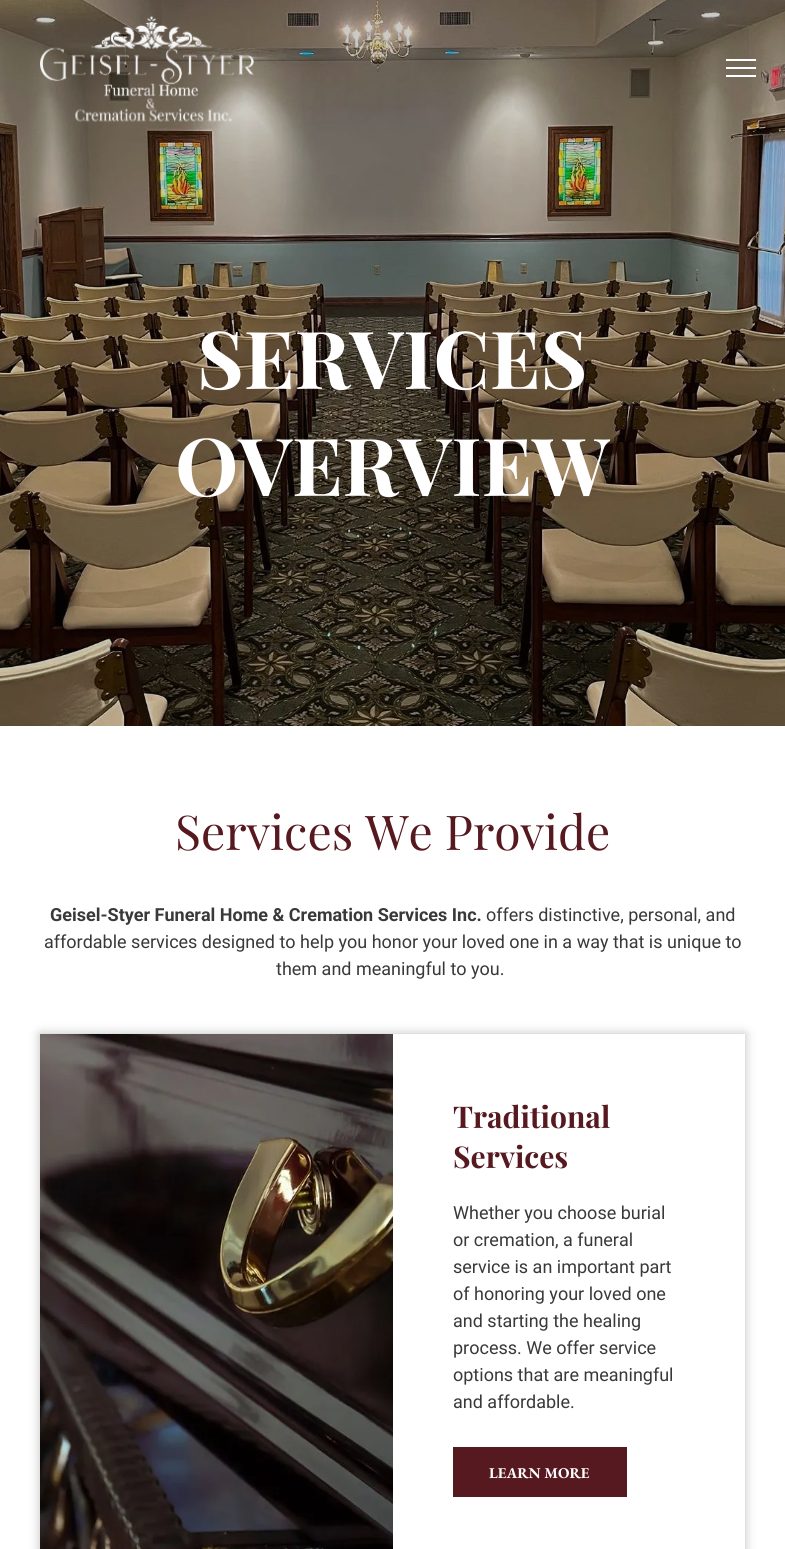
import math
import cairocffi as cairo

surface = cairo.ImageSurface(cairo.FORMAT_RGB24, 785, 1549)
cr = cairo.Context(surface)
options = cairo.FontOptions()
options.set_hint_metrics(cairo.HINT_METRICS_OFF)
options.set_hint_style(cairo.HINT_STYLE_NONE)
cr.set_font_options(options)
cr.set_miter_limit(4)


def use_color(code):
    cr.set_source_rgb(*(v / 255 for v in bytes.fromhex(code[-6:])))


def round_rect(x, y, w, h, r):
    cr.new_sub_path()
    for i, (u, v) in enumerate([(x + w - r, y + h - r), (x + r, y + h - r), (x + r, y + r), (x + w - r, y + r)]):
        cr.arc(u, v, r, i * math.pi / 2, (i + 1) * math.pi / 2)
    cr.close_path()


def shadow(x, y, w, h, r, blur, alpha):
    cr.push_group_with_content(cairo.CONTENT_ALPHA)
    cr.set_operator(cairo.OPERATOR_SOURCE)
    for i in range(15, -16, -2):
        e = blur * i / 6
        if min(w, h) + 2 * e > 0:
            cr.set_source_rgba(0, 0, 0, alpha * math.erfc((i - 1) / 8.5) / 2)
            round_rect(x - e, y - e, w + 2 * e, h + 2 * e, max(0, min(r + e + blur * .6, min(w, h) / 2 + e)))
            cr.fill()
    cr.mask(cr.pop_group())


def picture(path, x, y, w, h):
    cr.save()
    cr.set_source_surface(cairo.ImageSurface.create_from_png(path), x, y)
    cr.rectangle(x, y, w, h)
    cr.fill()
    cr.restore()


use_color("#ffffff")
cr.paint()
picture("img2.png", 0, 0, 785, 726)
picture("img1.png", 40, 16, 214, 106)
cr.select_font_face("Liberation Sans", cairo.FONT_SLANT_NORMAL, cairo.FONT_WEIGHT_BOLD)
cr.set_font_size(19)
use_color("#5c5346")
cr.move_to(100, 47)
cr.show_text(":")
use_color("#ffffff")
cr.rectangle(726, 59, 30, 2)
cr.fill()
cr.rectangle(726, 67, 30, 2)
cr.fill()
cr.rectangle(726, 75, 30, 2)
cr.fill()
cr.select_font_face("Playfair Display", cairo.FONT_SLANT_NORMAL, cairo.FONT_WEIGHT_BOLD)
cr.set_font_size(80)
cr.move_to(197, 389)
cr.show_text("SERVICES")
cr.move_to(175, 496)
cr.show_text("OVERVIEW")
cr.select_font_face("Playfair Display")
cr.set_font_size(48)
use_color("#571920")
cr.move_to(175, 850)
cr.show_text("Services We Provide")
cr.select_font_face("Roboto", cairo.FONT_SLANT_NORMAL, cairo.FONT_WEIGHT_BOLD)
cr.set_font_size(18)
use_color("#393939")
cr.move_to(50, 921)
cr.show_text("Geisel-Styer Funeral Home & Cremation Services Inc.")
cr.select_font_face("Roboto")
cr.move_to(486, 921)
cr.show_text("offers distinctive, personal, and")
cr.move_to(44, 948)
cr.show_text("affordable services designed to help you honor your loved one in a way that is unique to")
cr.move_to(276, 975)
cr.show_text("them and meaningful to you.")
cr.save()
cr.set_fill_rule(cairo.FILL_RULE_EVEN_ODD)
cr.new_path()
cr.move_to(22, 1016)
cr.line_to(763, 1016)
cr.line_to(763, 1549)
cr.line_to(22, 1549)
cr.close_path()
cr.move_to(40, 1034)
cr.line_to(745, 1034)
cr.line_to(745, 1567)
cr.line_to(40, 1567)
cr.close_path()
cr.clip()
use_color("#000000")
shadow(40, 1034, 705, 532, 0, 5.5, 0.25)
cr.restore()
picture("img3.png", 40, 1034, 353, 515)
cr.select_font_face("Playfair Display", cairo.FONT_SLANT_NORMAL, cairo.FONT_WEIGHT_BOLD)
cr.set_font_size(30)
use_color("#571920")
cr.move_to(453, 1128)
cr.show_text("Traditional")
cr.move_to(453, 1168)
cr.show_text("Services")
cr.select_font_face("Roboto")
cr.set_font_size(18)
use_color("#393939")
cr.move_to(453, 1219)
cr.show_text("Whether you choose burial")
cr.move_to(453, 1246)
cr.show_text("or cremation, a funeral")
cr.move_to(453, 1273)
cr.show_text("service is an important part")
cr.move_to(453, 1300)
cr.show_text("of honoring your loved one")
cr.move_to(453, 1327)
cr.show_text("and starting the healing")
cr.move_to(453, 1354)
cr.show_text("process. We offer service")
cr.move_to(453, 1381)
cr.show_text("options that are meaningful")
cr.move_to(453, 1408)
cr.show_text("and affordable.")
use_color("#571920")
cr.rectangle(453, 1447, 174, 50)
cr.fill()
cr.select_font_face("EB Garamond", cairo.FONT_SLANT_NORMAL, cairo.FONT_WEIGHT_BOLD)
cr.set_font_size(15)
use_color("#ffffff")
cr.move_to(489, 1478)
cr.show_text("LEARN MORE")
surface.write_to_png("result.png")
